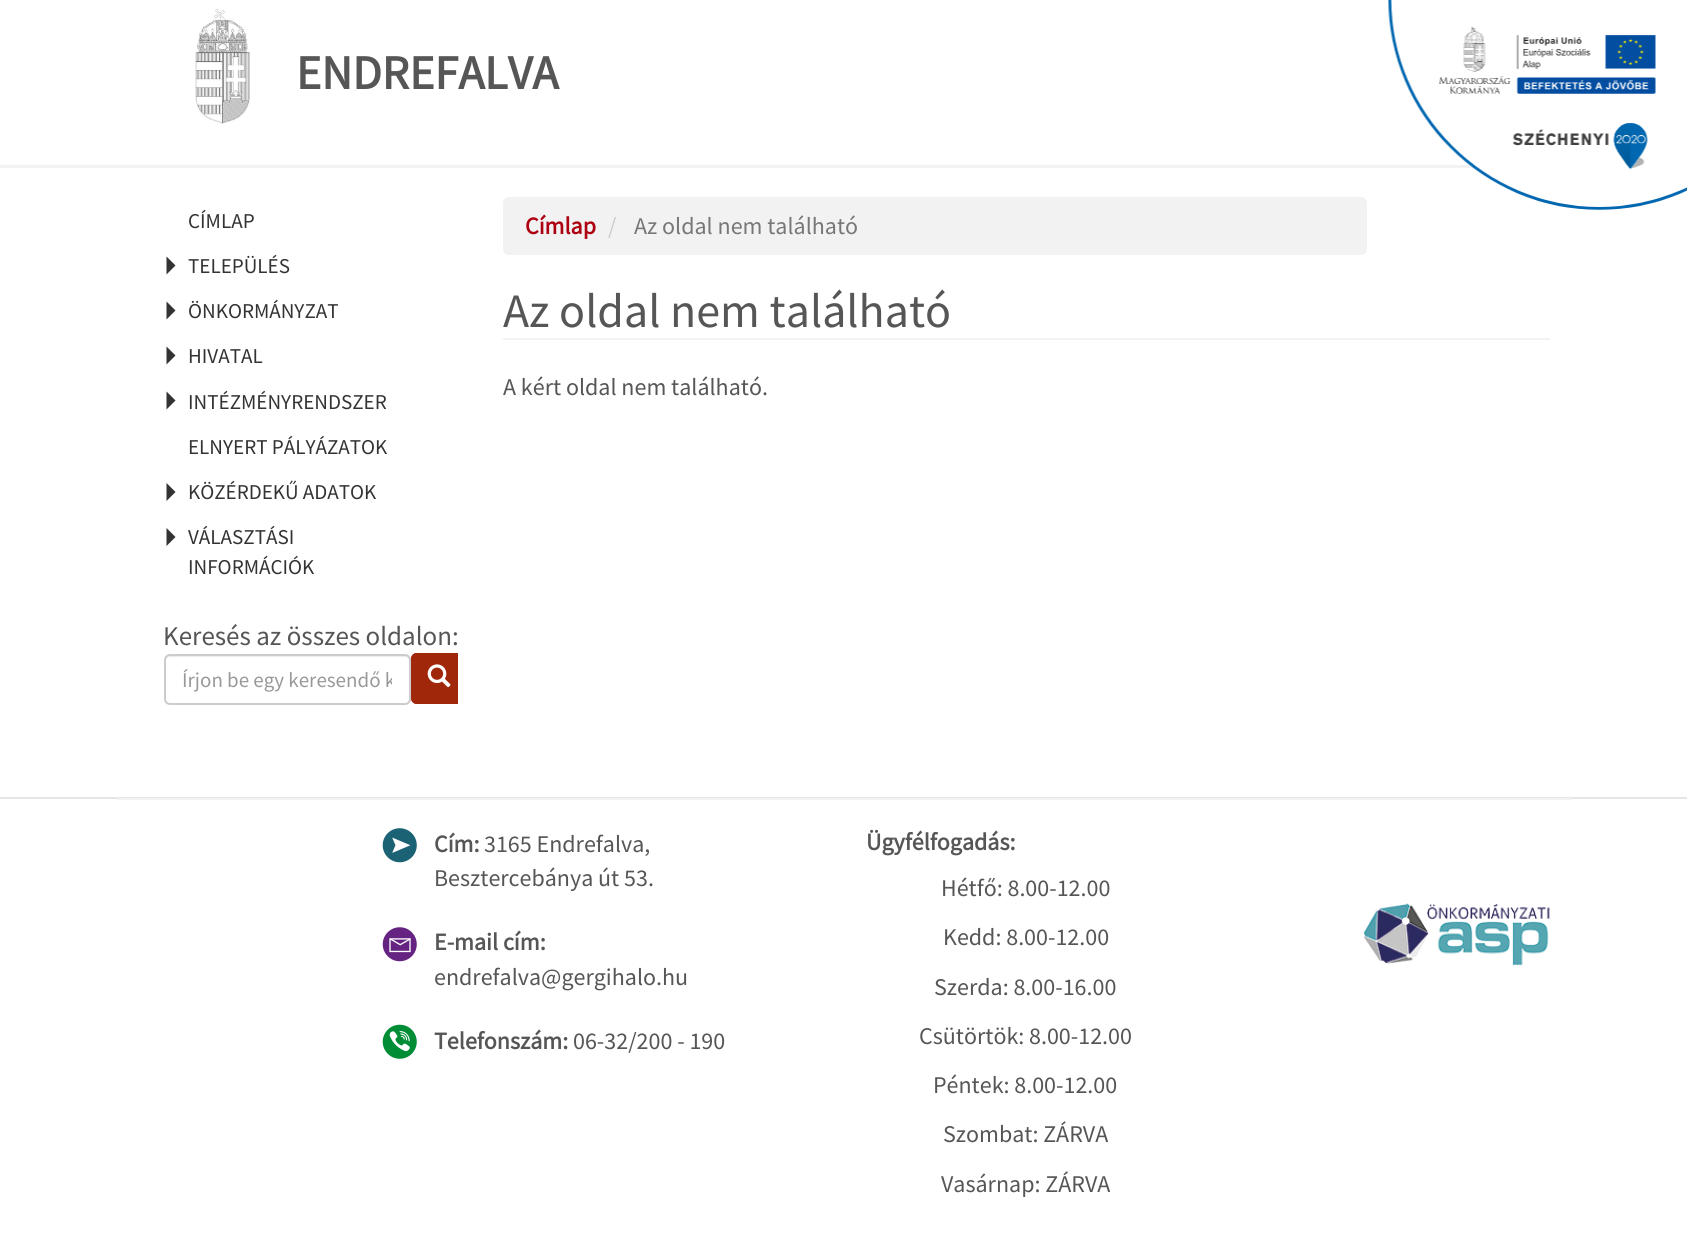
import math
import cairocffi as cairo

surface = cairo.ImageSurface(cairo.FORMAT_RGB24, 1687, 1236)
cr = cairo.Context(surface)
options = cairo.FontOptions()
options.set_hint_metrics(cairo.HINT_METRICS_OFF)
options.set_hint_style(cairo.HINT_STYLE_NONE)
cr.set_font_options(options)
cr.set_miter_limit(4)


def use_color(code):
    cr.set_source_rgb(*(v / 255 for v in bytes.fromhex(code[-6:])))


def round_rect(x, y, w, h, r):
    cr.new_sub_path()
    for i, (u, v) in enumerate([(x + w - r, y + h - r), (x + r, y + h - r), (x + r, y + r), (x + w - r, y + r)]):
        cr.arc(u, v, r, i * math.pi / 2, (i + 1) * math.pi / 2)
    cr.close_path()


def picture(path, x, y, w, h):
    cr.save()
    cr.set_source_surface(cairo.ImageSurface.create_from_png(path), x, y)
    cr.rectangle(x, y, w, h)
    cr.fill()
    cr.restore()


use_color("#ffffff")
cr.paint()
use_color("#f2f2f2")
cr.rectangle(0, 165, 1474, 3)
cr.fill()
picture("img1.png", 195, 9, 55, 115)
cr.select_font_face("Source Sans Pro", cairo.FONT_SLANT_NORMAL, cairo.FONT_WEIGHT_BOLD)
cr.set_font_size(48)
use_color("#565656")
cr.move_to(296, 89)
cr.show_text("ENDREFALVA")
cr.select_font_face("Source Sans Pro")
cr.set_font_size(21.1)
use_color("#333333")
cr.move_to(188, 228)
cr.show_text("CÍMLAP")
cr.new_path()
cr.move_to(166.5, 274.5)
cr.line_to(166.5, 256.5)
cr.line_to(175.5, 265.5)
cr.close_path()
cr.fill()
cr.move_to(188, 273)
cr.show_text("TELEPÜLÉS")
cr.new_path()
cr.move_to(166.5, 319.5)
cr.line_to(166.5, 301.5)
cr.line_to(175.5, 310.5)
cr.close_path()
cr.fill()
cr.move_to(188, 318)
cr.show_text("ÖNKORMÁNYZAT")
cr.new_path()
cr.move_to(166.5, 364.5)
cr.line_to(166.5, 346.5)
cr.line_to(175.5, 355.5)
cr.close_path()
cr.fill()
cr.move_to(188, 363)
cr.show_text("HIVATAL")
cr.new_path()
cr.move_to(166.5, 409.5)
cr.line_to(166.5, 391.5)
cr.line_to(175.5, 400.5)
cr.close_path()
cr.fill()
cr.move_to(188, 409)
cr.show_text("INTÉZMÉNYRENDSZER")
cr.move_to(188, 454)
cr.show_text("ELNYERT PÁLYÁZATOK")
cr.new_path()
cr.move_to(166.5, 501)
cr.line_to(166.5, 483)
cr.line_to(175.5, 492)
cr.close_path()
cr.move_to(166.5, 546)
cr.line_to(166.5, 528)
cr.line_to(175.5, 537)
cr.close_path()
cr.fill()
cr.move_to(188, 499)
cr.show_text("KÖZÉRDEKŰ ADATOK")
cr.move_to(188, 544)
cr.show_text("VÁLASZTÁSI")
cr.move_to(188, 574)
cr.show_text("INFORMÁCIÓK")
cr.set_font_size(27)
use_color("#565656")
cr.move_to(163, 645)
cr.show_text("Keresés az összes oldalon:")
use_color("#ececec")
cr.new_path()
cr.move_to(170, 657)
cr.line_to(405, 657)
cr.curve_to(407, 657, 410, 659, 410, 662)
cr.line_to(410, 661)
cr.curve_to(410, 658, 408, 656, 405, 656)
cr.line_to(170, 656)
cr.curve_to(167, 656, 165, 658, 165, 661)
cr.line_to(165, 662)
cr.curve_to(165, 659, 167, 657, 170, 657)
cr.close_path()
cr.fill()
round_rect(165, 655, 245, 49, 5)
use_color("#cccccc")
cr.stroke()
cr.save()
cr.rectangle(183, 666, 209, 27)
cr.clip()
cr.set_font_size(21)
use_color("#999999")
cr.move_to(182, 687)
cr.show_text("Írjon be egy keresendő k")
cr.restore()
use_color("#a1270b")
cr.new_path()
cr.move_to(417, 653)
cr.line_to(458, 653)
cr.line_to(458, 704)
cr.line_to(417, 704)
cr.curve_to(413.5, 704, 411, 701.5, 411, 698)
cr.line_to(411, 659)
cr.curve_to(411, 655.5, 413.5, 653, 417, 653)
cr.close_path()
cr.fill()
cr.save()
cr.rectangle(140, 197, 318, 540)
cr.clip()
round_rect(412, 654, 55, 49, 5)
cr.stroke()
cr.restore()
picture("img2.png", 427, 664, 24, 24)
use_color("#f2f2f2")
round_rect(503, 197, 864, 58, 6)
cr.fill()
cr.select_font_face("Source Sans Pro", cairo.FONT_SLANT_NORMAL, cairo.FONT_WEIGHT_BOLD)
cr.set_font_size(24)
use_color("#ad0010")
cr.move_to(525, 234)
cr.show_text("Címlap")
cr.select_font_face("Source Sans Pro")
use_color("#cccccc")
cr.move_to(608, 234)
cr.show_text("/")
use_color("#777777")
cr.move_to(634, 234)
cr.show_text("Az oldal nem található")
use_color("#f2f2f2")
cr.rectangle(503, 338, 1047, 2)
cr.fill()
cr.set_font_size(48)
use_color("#565656")
cr.move_to(503, 327)
cr.show_text("Az oldal nem található")
cr.set_font_size(24)
cr.move_to(503, 395)
cr.show_text("A kért oldal nem található.")
use_color("#e5e5e5")
cr.rectangle(0, 797, 1687, 2)
cr.fill()
use_color("#f2f2f2")
cr.rectangle(117, 798, 1455, 2)
cr.fill()
picture("img3.png", 382, 828, 35, 35)
cr.select_font_face("Source Sans Pro", cairo.FONT_SLANT_NORMAL, cairo.FONT_WEIGHT_BOLD)
use_color("#565656")
cr.move_to(434, 852)
cr.show_text("Cím:")
cr.select_font_face("Source Sans Pro")
cr.move_to(484, 852)
cr.show_text("3165 Endrefalva,")
cr.move_to(434, 886)
cr.show_text("Besztercebánya út 53.")
picture("img4.png", 382, 927, 35, 35)
cr.select_font_face("Source Sans Pro", cairo.FONT_SLANT_NORMAL, cairo.FONT_WEIGHT_BOLD)
cr.move_to(434, 950)
cr.show_text("E-mail cím:")
cr.select_font_face("Source Sans Pro")
cr.move_to(434, 985)
cr.show_text("endrefalva@gergihalo.hu")
picture("img5.png", 382, 1024, 35, 35)
cr.select_font_face("Source Sans Pro", cairo.FONT_SLANT_NORMAL, cairo.FONT_WEIGHT_BOLD)
cr.move_to(434, 1049)
cr.show_text("Telefonszám:")
cr.select_font_face("Source Sans Pro")
cr.move_to(573, 1049)
cr.show_text("06-32/200 - 190")
cr.select_font_face("Source Sans Pro", cairo.FONT_SLANT_NORMAL, cairo.FONT_WEIGHT_BOLD)
cr.move_to(866, 850)
cr.show_text("Ügyfélfogadás:")
cr.select_font_face("Source Sans Pro")
cr.move_to(941, 896)
cr.show_text("Hétfő: 8.00-12.00")
cr.move_to(943, 945)
cr.show_text("Kedd: 8.00-12.00")
cr.move_to(934, 995)
cr.show_text("Szerda: 8.00-16.00")
cr.move_to(919, 1044)
cr.show_text("Csütörtök: 8.00-12.00")
cr.move_to(933, 1093)
cr.show_text("Péntek: 8.00-12.00")
cr.move_to(943, 1142)
cr.show_text("Szombat: ZÁRVA")
cr.move_to(941, 1192)
cr.show_text("Vasárnap: ZÁRVA")
picture("img6.png", 1363, 903, 187, 63)
picture("img7.png", 1387, 0, 300, 210)
surface.write_to_png("result.png")
